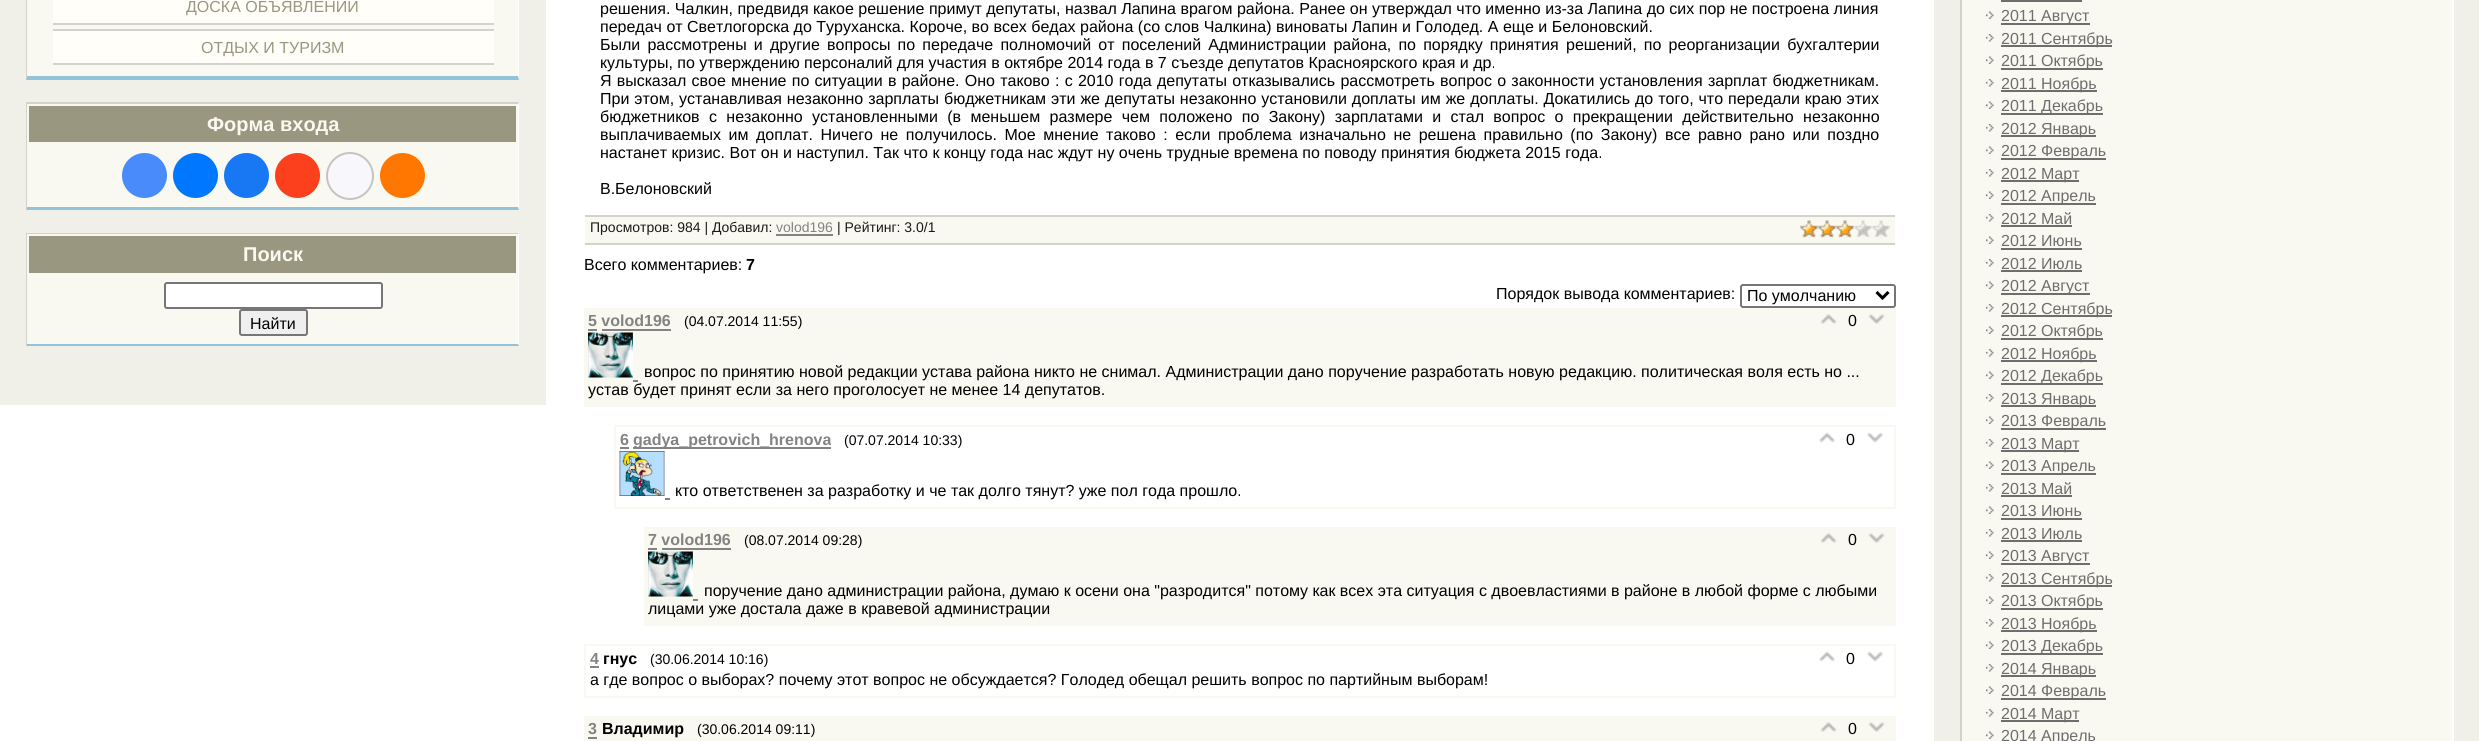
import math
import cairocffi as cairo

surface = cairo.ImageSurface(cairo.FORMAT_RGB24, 2479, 741)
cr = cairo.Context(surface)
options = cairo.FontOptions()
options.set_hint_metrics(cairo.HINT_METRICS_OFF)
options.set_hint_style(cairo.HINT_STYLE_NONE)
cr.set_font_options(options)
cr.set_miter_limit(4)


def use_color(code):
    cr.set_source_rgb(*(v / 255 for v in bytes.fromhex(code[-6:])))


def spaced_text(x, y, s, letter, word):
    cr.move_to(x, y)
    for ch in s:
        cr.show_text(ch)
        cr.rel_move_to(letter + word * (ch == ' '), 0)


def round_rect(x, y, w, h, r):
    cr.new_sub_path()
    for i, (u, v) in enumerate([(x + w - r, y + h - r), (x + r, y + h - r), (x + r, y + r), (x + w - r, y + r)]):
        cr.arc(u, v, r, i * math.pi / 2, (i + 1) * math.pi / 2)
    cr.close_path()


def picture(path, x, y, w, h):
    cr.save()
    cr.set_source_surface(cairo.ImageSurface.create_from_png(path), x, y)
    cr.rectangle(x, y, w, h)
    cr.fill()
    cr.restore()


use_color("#ffffff")
cr.paint()
use_color("#f1f0e8")
cr.rectangle(0, 0, 546, 405)
cr.fill()
use_color("#faf9f1")
cr.rectangle(27, 0, 491, 76)
cr.fill()
use_color("#ffffff")
cr.new_path()
cr.move_to(519, -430)
cr.line_to(519, 80)
cr.line_to(518, 76)
cr.line_to(518, -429)
cr.close_path()
cr.fill()
use_color("#93c3d7")
cr.new_path()
cr.move_to(519, 80)
cr.line_to(26, 80)
cr.line_to(27, 76)
cr.line_to(518, 76)
cr.close_path()
cr.fill()
use_color("#d3d2cb")
cr.new_path()
cr.move_to(26, 80)
cr.line_to(26, -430)
cr.line_to(27, -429)
cr.line_to(27, 76)
cr.close_path()
cr.fill()
use_color("#fffef9")
cr.rectangle(53, 0, 441, 23)
cr.fill()
use_color("#d3d2cb")
cr.rectangle(53, 23, 441, 2)
cr.fill()
cr.select_font_face("Liberation Sans")
cr.set_font_size(16)
use_color("#99977f")
cr.move_to(186, 12)
cr.show_text("ДОСКА ОБЪЯВЛЕНИЙ")
use_color("#fffef9")
cr.rectangle(53, 31, 441, 32)
cr.fill()
use_color("#d3d2cb")
cr.rectangle(53, 29, 441, 2)
cr.fill()
cr.rectangle(53, 63, 441, 2)
cr.fill()
use_color("#99977f")
cr.move_to(201, 53)
cr.show_text("ОТДЫХ И ТУРИЗМ")
use_color("#faf9f1")
cr.rectangle(27, 144, 491, 63)
cr.fill()
use_color("#d3d2cb")
cr.rectangle(26, 102, 493, 2)
cr.fill()
use_color("#ffffff")
cr.new_path()
cr.move_to(519, 102)
cr.line_to(519, 210)
cr.line_to(518, 207)
cr.line_to(518, 104)
cr.close_path()
cr.fill()
use_color("#93c3d7")
cr.new_path()
cr.move_to(519, 210)
cr.line_to(26, 210)
cr.line_to(27, 207)
cr.line_to(518, 207)
cr.close_path()
cr.fill()
use_color("#d3d2cb")
cr.new_path()
cr.move_to(26, 210)
cr.line_to(26, 102)
cr.line_to(27, 104)
cr.line_to(27, 207)
cr.close_path()
cr.fill()
use_color("#99977f")
cr.rectangle(28, 105, 489, 38)
cr.fill_preserve()
use_color("#faf9f1")
cr.stroke()
cr.select_font_face("Liberation Sans", cairo.FONT_SLANT_NORMAL, cairo.FONT_WEIGHT_BOLD)
cr.set_font_size(20)
cr.move_to(207, 131)
cr.show_text("Форма входа")
use_color("#498bfa")
cr.new_path()
cr.arc(144.5, 175.5, 22.5, 0, 2 * math.pi)
cr.fill()
use_color("#0077ff")
cr.arc(195.5, 175.5, 22.5, 0, 2 * math.pi)
cr.fill()
use_color("#1877f2")
cr.arc(246.5, 175.5, 22.5, 0, 2 * math.pi)
cr.fill()
use_color("#fc3f1d")
cr.arc(297.5, 175.5, 22.5, 0, 2 * math.pi)
cr.fill()
use_color("#f8f8fc")
cr.arc(350, 176, 23, 0, 2 * math.pi)
cr.fill_preserve()
use_color("#c4c4c4")
cr.stroke()
use_color("#ff7700")
cr.arc(402.5, 175.5, 22.5, 0, 2 * math.pi)
cr.fill()
use_color("#faf9f1")
cr.rectangle(27, 275, 491, 69)
cr.fill()
use_color("#d3d2cb")
cr.rectangle(26, 233, 493, 1)
cr.fill()
use_color("#ffffff")
cr.new_path()
cr.move_to(519, 232)
cr.line_to(519, 346)
cr.line_to(518, 344)
cr.line_to(518, 234)
cr.close_path()
cr.fill()
use_color("#93c3d7")
cr.new_path()
cr.move_to(519, 346)
cr.line_to(26, 346)
cr.line_to(27, 344)
cr.line_to(518, 344)
cr.close_path()
cr.fill()
use_color("#d3d2cb")
cr.new_path()
cr.move_to(26, 346)
cr.line_to(26, 232)
cr.line_to(27, 234)
cr.line_to(27, 344)
cr.close_path()
cr.fill()
use_color("#99977f")
cr.rectangle(28, 235, 489, 39)
cr.fill_preserve()
use_color("#faf9f1")
cr.stroke()
cr.move_to(243, 261)
cr.show_text("Поиск")
use_color("#ffffff")
round_rect(165, 283, 217, 25, 2)
cr.fill_preserve()
use_color("#767676")
cr.stroke()
use_color("#efefef")
round_rect(240, 310, 67, 25, 2)
cr.fill_preserve()
use_color("#767676")
cr.stroke()
cr.select_font_face("Liberation Sans")
cr.set_font_size(16)
use_color("#000000")
cr.move_to(250, 329)
cr.show_text("Найти")
cr.move_to(600, 14)
cr.show_text("решения. Чалкин, предвидя какое решение примут депутаты, назвал Лапина врагом района. Ранее он утверждал что именно из-за Лапина до сих пор не построена линия")
cr.move_to(600, 32)
cr.show_text("передач от Светлогорска до Туруханска. Короче, во всех бедах района (со слов Чалкина) виноваты Лапин и Голодед. А еще и Белоновский.")
spaced_text(600, 50, "Были рассмотрены и другие вопросы по передаче полномочий от поселений Администрации района, по порядку принятия решений, по реорганизации бухгалтерии", 0, 2.75)
cr.move_to(600, 68)
cr.show_text("культуры, по утверждению персоналий для участия в октябре 2014 года в 7 съезде депутатов Красноярского края и др.")
spaced_text(600, 86, "Я высказал свое мнение по ситуации в районе. Оно таково : с 2010 года депутаты отказывались рассмотреть вопрос о законности установления зарплат бюджетникам.", 0, 0.8)
spaced_text(600, 104, "При этом, устанавливая незаконно зарплаты бюджетникам эти же депутаты незаконно установили доплаты им же доплаты. Докатились до того, что передали краю этих", 0, 0.5)
spaced_text(600, 122, "бюджетников с незаконно установленными (в меньшем размере чем положено по Закону) зарплатами и стал вопрос о прекращении действительно незаконно", 0, 4.9)
spaced_text(600, 140, "выплачиваемых им доплат. Ничего не получилось. Мое мнение таково : если проблема изначально не решена правильно (по Закону) все равно рано или поздно", 0, 3.1)
cr.move_to(600, 158)
cr.show_text("настанет кризис. Вот он и наступил. Так что к концу года нас ждут ну очень трудные времена по поводу принятия бюджета 2015 года.")
cr.move_to(600, 194)
cr.show_text("В.Белоновский")
use_color("#faf9f1")
cr.rectangle(585, 217, 1310, 26)
cr.fill()
use_color("#d3d2cb")
cr.rectangle(585, 215, 1310, 2)
cr.fill()
cr.rectangle(585, 243, 1310, 2)
cr.fill()
cr.set_font_size(14)
use_color("#1a1a1a")
cr.move_to(590, 232)
cr.show_text("Просмотров: 984 | Добавил:")
use_color("#838383")
cr.move_to(776, 232)
cr.show_text("volod196")
cr.rectangle(776, 234, 57, 2)
cr.fill()
use_color("#1a1a1a")
cr.move_to(837, 232)
cr.show_text("| Рейтинг: 3.0/1")
picture("img1.png", 1800, 220, 90, 18)
picture("img2.png", 1800, 220, 54, 18)
cr.set_font_size(16)
use_color("#000000")
cr.move_to(584, 270)
cr.show_text("Всего комментариев:")
cr.select_font_face("Liberation Sans", cairo.FONT_SLANT_NORMAL, cairo.FONT_WEIGHT_BOLD)
cr.move_to(746, 270)
cr.show_text("7")
cr.select_font_face("Liberation Sans")
cr.move_to(1496, 299)
cr.show_text("Порядок вывода комментариев:")
round_rect(1741, 285, 154, 22, 2)
use_color("#767676")
cr.stroke()
cr.new_path()
cr.move_to(1876.5, 292)
cr.line_to(1882.5, 298)
cr.line_to(1888.5, 292)
use_color("#000000")
cr.set_line_width(3)
cr.stroke()
cr.move_to(1747, 301)
cr.show_text("По умолчанию")
use_color("#faf9f1")
cr.rectangle(584, 308, 1312, 99)
cr.fill()
cr.select_font_face("Liberation Sans", cairo.FONT_SLANT_NORMAL, cairo.FONT_WEIGHT_BOLD)
use_color("#838383")
cr.move_to(588, 326)
cr.show_text("5 volod196")
cr.rectangle(588, 329, 9, 2)
cr.fill()
cr.select_font_face("Liberation Sans")
cr.set_font_size(14)
use_color("#000000")
cr.move_to(684, 326)
cr.show_text("(04.07.2014 11:55)")
use_color("#838383")
cr.rectangle(602, 329, 69, 2)
cr.fill()
picture("img3.png", 1820, 314, 17, 10)
cr.set_font_size(16)
use_color("#000000")
cr.move_to(1848, 326)
cr.show_text("0")
picture("img4.png", 1868, 314, 17, 10)
picture("img5.png", 588, 332, 45, 46)
use_color("#838383")
cr.rectangle(633, 380, 5, 2)
cr.fill()
use_color("#000000")
cr.move_to(644, 377)
cr.show_text("вопрос по принятию новой редакции устава района никто не снимал. Администрации дано поручение разработать новую редакцию. политическая воля есть но ...")
cr.move_to(588, 395)
cr.show_text("устав будет принят если за него проголосует не менее 14 депутатов.")
cr.rectangle(615, 426, 1280, 82)
use_color("#faf9f1")
cr.set_line_width(2)
cr.stroke()
cr.select_font_face("Liberation Sans", cairo.FONT_SLANT_NORMAL, cairo.FONT_WEIGHT_BOLD)
use_color("#838383")
cr.move_to(620, 445)
cr.show_text("6")
cr.rectangle(620, 447, 9, 2)
cr.fill()
cr.rectangle(633, 447, 198, 2)
cr.fill()
cr.move_to(633, 445)
cr.show_text("gadya_petrovich_hrenova")
cr.select_font_face("Liberation Sans")
cr.set_font_size(14)
use_color("#000000")
cr.move_to(844, 445)
cr.show_text("(07.07.2014 10:33)")
picture("img6.png", 1819, 432, 16, 11)
cr.set_font_size(16)
cr.move_to(1846, 445)
cr.show_text("0")
picture("img7.png", 1867, 432, 16, 11)
picture("img8.png", 619, 451, 46, 45)
use_color("#838383")
cr.rectangle(665, 498, 5, 2)
cr.fill()
use_color("#000000")
cr.move_to(675, 496)
cr.show_text("кто ответственен за разработку и че так долго тянут? уже пол года прошло.")
use_color("#faf9f1")
cr.rectangle(644, 527, 1252, 99)
cr.fill()
cr.select_font_face("Liberation Sans", cairo.FONT_SLANT_NORMAL, cairo.FONT_WEIGHT_BOLD)
use_color("#838383")
cr.move_to(648, 545)
cr.show_text("7 volod196")
cr.rectangle(648, 548, 9, 2)
cr.fill()
cr.select_font_face("Liberation Sans")
cr.set_font_size(14)
use_color("#000000")
cr.move_to(744, 545)
cr.show_text("(08.07.2014 09:28)")
use_color("#838383")
cr.rectangle(662, 548, 69, 2)
cr.fill()
picture("img3.png", 1820, 533, 17, 10)
cr.set_font_size(16)
use_color("#000000")
cr.move_to(1848, 545)
cr.show_text("0")
picture("img4.png", 1868, 533, 17, 10)
picture("img5.png", 648, 551, 45, 46)
use_color("#838383")
cr.rectangle(693, 599, 5, 2)
cr.fill()
use_color("#000000")
cr.move_to(704, 596)
cr.show_text("поручение дано администрации района, думаю к осени она \"разродится\" потому как всех эта ситуация с двоевластиями в районе в любой форме с любыми")
cr.move_to(648, 614)
cr.show_text("лицами уже достала даже в кравевой администрации")
cr.rectangle(585, 645, 1310, 52)
use_color("#faf9f1")
cr.stroke()
cr.select_font_face("Liberation Sans", cairo.FONT_SLANT_NORMAL, cairo.FONT_WEIGHT_BOLD)
use_color("#838383")
cr.move_to(590, 664)
cr.show_text("4")
cr.rectangle(590, 666, 9, 2)
cr.fill()
use_color("#000000")
cr.move_to(603, 664)
cr.show_text("гнус")
cr.select_font_face("Liberation Sans")
cr.set_font_size(14)
cr.move_to(650, 664)
cr.show_text("(30.06.2014 10:16)")
picture("img6.png", 1819, 651, 16, 11)
cr.set_font_size(16)
cr.move_to(1846, 664)
cr.show_text("0")
picture("img7.png", 1867, 651, 16, 11)
cr.move_to(590, 685)
cr.show_text("а где вопрос о выборах? почему этот вопрос не обсуждается? Голодед обещал решить вопрос по партийным выборам!")
use_color("#faf9f1")
cr.rectangle(584, 716, 1312, 25)
cr.fill()
cr.select_font_face("Liberation Sans", cairo.FONT_SLANT_NORMAL, cairo.FONT_WEIGHT_BOLD)
use_color("#838383")
cr.move_to(588, 734)
cr.show_text("3")
cr.rectangle(588, 737, 9, 2)
cr.fill()
use_color("#000000")
cr.move_to(602, 734)
cr.show_text("Владимир")
cr.select_font_face("Liberation Sans")
cr.set_font_size(14)
cr.move_to(697, 734)
cr.show_text("(30.06.2014 09:11)")
picture("img3.png", 1820, 722, 17, 10)
cr.set_font_size(16)
cr.move_to(1848, 734)
cr.show_text("0")
picture("img4.png", 1868, 722, 17, 10)
use_color("#f1f0e8")
cr.rectangle(1934, 0, 545, 741)
cr.fill()
use_color("#faf9f1")
cr.rectangle(1962, 0, 490, 741)
cr.fill()
use_color("#ffffff")
cr.new_path()
cr.move_to(2454, -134)
cr.line_to(2454, 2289)
cr.line_to(2452, 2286)
cr.line_to(2452, -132)
cr.close_path()
cr.fill()
use_color("#d3d2cb")
cr.new_path()
cr.move_to(1960, 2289)
cr.line_to(1960, -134)
cr.line_to(1962, -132)
cr.line_to(1962, 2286)
cr.close_path()
cr.fill()
use_color("#6e6e6e")
cr.rectangle(2001, 0, 81, 2)
cr.fill()
picture("img9.png", 1986, 11, 8, 8)
cr.rectangle(2001, 23, 89, 2)
cr.fill()
cr.move_to(2001, 21)
cr.show_text("2011 Август")
picture("img10.png", 1986, 34, 8, 8)
cr.rectangle(2001, 45, 111, 2)
cr.fill()
cr.move_to(2001, 44)
cr.show_text("2011 Сентябрь")
picture("img9.png", 1986, 56, 8, 8)
cr.rectangle(2001, 68, 102, 2)
cr.fill()
cr.move_to(2001, 66)
cr.show_text("2011 Октябрь")
picture("img10.png", 1986, 79, 8, 8)
cr.rectangle(2001, 90, 96, 2)
cr.fill()
cr.move_to(2001, 89)
cr.show_text("2011 Ноябрь")
picture("img9.png", 1986, 101, 8, 8)
cr.rectangle(2001, 113, 102, 2)
cr.fill()
cr.move_to(2001, 111)
cr.show_text("2011 Декабрь")
picture("img10.png", 1986, 124, 8, 8)
cr.rectangle(2001, 135, 95, 2)
cr.fill()
cr.move_to(2001, 134)
cr.show_text("2012 Январь")
picture("img9.png", 1986, 146, 8, 8)
cr.rectangle(2001, 158, 105, 2)
cr.fill()
cr.move_to(2001, 156)
cr.show_text("2012 Февраль")
picture("img10.png", 1986, 169, 8, 8)
cr.rectangle(2001, 180, 78, 2)
cr.fill()
cr.move_to(2001, 179)
cr.show_text("2012 Март")
picture("img9.png", 1986, 191, 8, 8)
cr.rectangle(2001, 203, 95, 2)
cr.fill()
cr.move_to(2001, 201)
cr.show_text("2012 Апрель")
picture("img10.png", 1986, 214, 8, 8)
cr.move_to(2001, 224)
cr.show_text("2012 Май")
cr.rectangle(2001, 225, 71, 2)
cr.fill()
picture("img9.png", 1986, 236, 8, 8)
cr.move_to(2001, 246)
cr.show_text("2012 Июнь")
cr.rectangle(2001, 248, 81, 2)
cr.fill()
picture("img10.png", 1986, 259, 8, 8)
cr.move_to(2001, 269)
cr.show_text("2012 Июль")
cr.rectangle(2001, 270, 81, 2)
cr.fill()
picture("img9.png", 1986, 281, 8, 8)
cr.rectangle(2001, 293, 89, 2)
cr.fill()
cr.move_to(2001, 291)
cr.show_text("2012 Август")
picture("img10.png", 1986, 304, 8, 8)
cr.rectangle(2001, 315, 111, 2)
cr.fill()
cr.move_to(2001, 314)
cr.show_text("2012 Сентябрь")
picture("img9.png", 1986, 326, 8, 8)
cr.rectangle(2001, 338, 102, 2)
cr.fill()
cr.move_to(2001, 336)
cr.show_text("2012 Октябрь")
picture("img10.png", 1986, 349, 8, 8)
cr.rectangle(2001, 360, 96, 2)
cr.fill()
cr.move_to(2001, 359)
cr.show_text("2012 Ноябрь")
picture("img9.png", 1986, 371, 8, 8)
cr.rectangle(2001, 383, 102, 2)
cr.fill()
cr.move_to(2001, 381)
cr.show_text("2012 Декабрь")
picture("img10.png", 1986, 394, 8, 8)
cr.rectangle(2001, 405, 95, 2)
cr.fill()
cr.move_to(2001, 404)
cr.show_text("2013 Январь")
picture("img9.png", 1986, 416, 8, 8)
cr.rectangle(2001, 428, 105, 2)
cr.fill()
cr.move_to(2001, 426)
cr.show_text("2013 Февраль")
picture("img10.png", 1986, 439, 8, 8)
cr.rectangle(2001, 450, 78, 2)
cr.fill()
cr.move_to(2001, 449)
cr.show_text("2013 Март")
picture("img9.png", 1986, 461, 8, 8)
cr.rectangle(2001, 473, 95, 2)
cr.fill()
cr.move_to(2001, 471)
cr.show_text("2013 Апрель")
picture("img10.png", 1986, 484, 8, 8)
cr.move_to(2001, 494)
cr.show_text("2013 Май")
cr.rectangle(2001, 495, 71, 2)
cr.fill()
picture("img9.png", 1986, 506, 8, 8)
cr.move_to(2001, 516)
cr.show_text("2013 Июнь")
cr.rectangle(2001, 518, 81, 2)
cr.fill()
picture("img10.png", 1986, 529, 8, 8)
cr.move_to(2001, 539)
cr.show_text("2013 Июль")
cr.rectangle(2001, 540, 81, 2)
cr.fill()
picture("img9.png", 1986, 551, 8, 8)
cr.rectangle(2001, 563, 89, 2)
cr.fill()
cr.move_to(2001, 561)
cr.show_text("2013 Август")
picture("img10.png", 1986, 574, 8, 8)
cr.rectangle(2001, 585, 111, 2)
cr.fill()
cr.move_to(2001, 584)
cr.show_text("2013 Сентябрь")
picture("img9.png", 1986, 596, 8, 8)
cr.rectangle(2001, 608, 102, 2)
cr.fill()
cr.move_to(2001, 606)
cr.show_text("2013 Октябрь")
picture("img10.png", 1986, 619, 8, 8)
cr.rectangle(2001, 630, 96, 2)
cr.fill()
cr.move_to(2001, 629)
cr.show_text("2013 Ноябрь")
picture("img9.png", 1986, 641, 8, 8)
cr.rectangle(2001, 653, 102, 2)
cr.fill()
cr.move_to(2001, 651)
cr.show_text("2013 Декабрь")
picture("img10.png", 1986, 664, 8, 8)
cr.rectangle(2001, 675, 95, 2)
cr.fill()
cr.move_to(2001, 674)
cr.show_text("2014 Январь")
picture("img9.png", 1986, 686, 8, 8)
cr.rectangle(2001, 698, 105, 2)
cr.fill()
cr.move_to(2001, 696)
cr.show_text("2014 Февраль")
picture("img10.png", 1986, 709, 8, 8)
cr.rectangle(2001, 720, 78, 2)
cr.fill()
cr.move_to(2001, 719)
cr.show_text("2014 Март")
picture("img9.png", 1986, 731, 8, 8)
cr.move_to(2001, 741)
cr.show_text("2014 Апрель")
surface.write_to_png("result.png")
